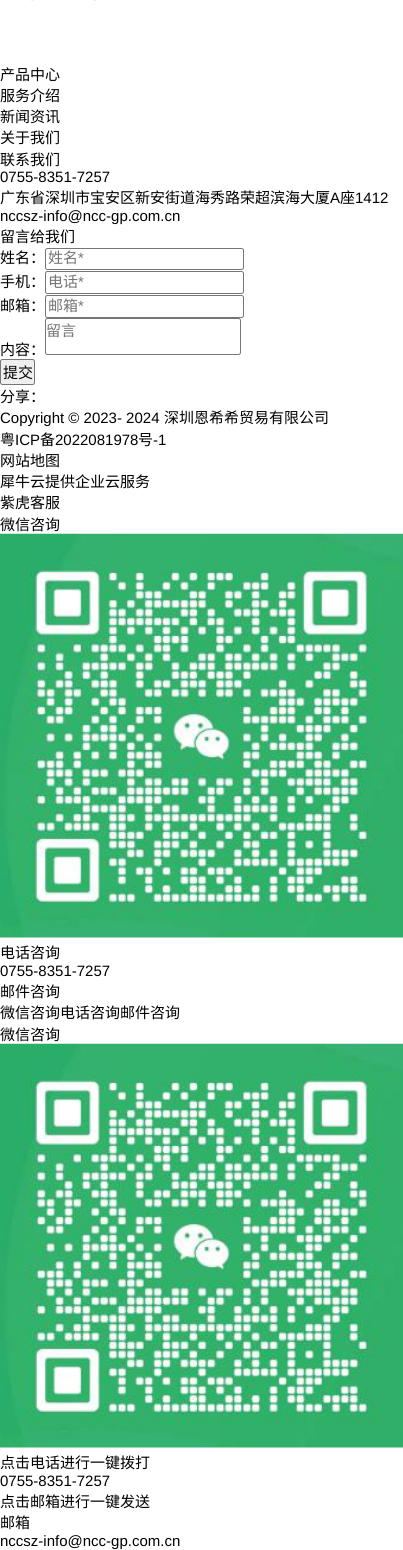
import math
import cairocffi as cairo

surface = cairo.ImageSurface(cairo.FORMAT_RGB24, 403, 1550)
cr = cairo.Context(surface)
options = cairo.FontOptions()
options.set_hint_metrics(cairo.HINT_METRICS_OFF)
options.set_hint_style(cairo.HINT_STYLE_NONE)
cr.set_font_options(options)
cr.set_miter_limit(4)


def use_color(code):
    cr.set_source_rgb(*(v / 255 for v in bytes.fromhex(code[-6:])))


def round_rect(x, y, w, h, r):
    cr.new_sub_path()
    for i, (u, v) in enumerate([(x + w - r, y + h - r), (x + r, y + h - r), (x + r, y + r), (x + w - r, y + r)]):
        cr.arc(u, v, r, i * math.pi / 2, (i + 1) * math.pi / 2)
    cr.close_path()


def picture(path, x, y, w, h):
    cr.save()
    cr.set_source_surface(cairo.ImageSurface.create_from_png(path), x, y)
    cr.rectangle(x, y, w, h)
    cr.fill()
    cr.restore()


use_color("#ffffff")
cr.paint()
picture("img1.png", 31, 0, 65, 1)
cr.select_font_face("Noto Sans CJK SC")
cr.set_font_size(15)
use_color("#000000")
cr.move_to(0, 80)
cr.show_text("产品中心")
cr.move_to(0, 101)
cr.show_text("服务介绍")
cr.move_to(0, 122)
cr.show_text("新闻资讯")
cr.move_to(0, 143)
cr.show_text("关于我们")
cr.move_to(0, 165)
cr.show_text("联系我们")
cr.select_font_face("Liberation Sans")
cr.move_to(0, 182)
cr.show_text("0755-8351-7257")
cr.select_font_face("Noto Sans CJK SC")
cr.move_to(0, 203)
cr.show_text("广东省深圳市宝安区新安街道海秀路荣超滨海大厦")
cr.select_font_face("Liberation Sans")
cr.move_to(330, 203)
cr.show_text("A")
cr.select_font_face("Noto Sans CJK SC")
cr.move_to(340, 203)
cr.show_text("座")
cr.select_font_face("Liberation Sans")
cr.move_to(355, 203)
cr.show_text("1412")
cr.move_to(0, 221)
cr.show_text("nccsz-info@ncc-gp.com.cn")
cr.select_font_face("Noto Sans CJK SC")
cr.move_to(0, 242)
cr.show_text("留言给我们")
cr.move_to(0, 263)
cr.show_text("姓名：")
round_rect(45.5, 248.5, 198, 21, 2)
use_color("#767676")
cr.set_line_width(1)
cr.stroke()
use_color("#757575")
cr.move_to(48, 263)
cr.show_text("姓名")
cr.select_font_face("Liberation Sans")
cr.move_to(78, 263)
cr.show_text("*")
cr.select_font_face("Noto Sans CJK SC")
use_color("#000000")
cr.move_to(0, 287)
cr.show_text("手机：")
round_rect(45.5, 271.5, 198, 22, 2)
use_color("#767676")
cr.stroke()
use_color("#757575")
cr.move_to(48, 287)
cr.show_text("电话")
cr.select_font_face("Liberation Sans")
cr.move_to(78, 287)
cr.show_text("*")
cr.select_font_face("Noto Sans CJK SC")
use_color("#000000")
cr.move_to(0, 311)
cr.show_text("邮箱：")
round_rect(45.5, 295.5, 198, 22, 2)
use_color("#767676")
cr.stroke()
use_color("#757575")
cr.move_to(48, 311)
cr.show_text("邮箱")
cr.select_font_face("Liberation Sans")
cr.move_to(78, 311)
cr.show_text("*")
round_rect(45.5, 318.5, 195, 36, 2)
use_color("#767676")
cr.stroke()
cr.select_font_face("Noto Sans CJK SC")
use_color("#757575")
cr.move_to(46, 336)
cr.show_text("留言")
use_color("#000000")
cr.move_to(0, 355)
cr.show_text("内容：")
use_color("#efefef")
round_rect(0.5, 359.5, 34, 25, 2)
cr.fill_preserve()
use_color("#767676")
cr.stroke()
use_color("#000000")
cr.move_to(3, 378)
cr.show_text("提交")
cr.move_to(0, 402)
cr.show_text("分享：")
cr.select_font_face("Liberation Sans")
cr.move_to(0, 423)
cr.show_text("Copyright © 2023- 2024")
cr.select_font_face("Noto Sans CJK SC")
cr.move_to(164, 423)
cr.show_text("深圳恩希希贸易有限公司")
cr.move_to(0, 445)
cr.show_text("粤")
cr.select_font_face("Liberation Sans")
cr.move_to(15, 445)
cr.show_text("ICP")
cr.select_font_face("Noto Sans CJK SC")
cr.move_to(40, 445)
cr.show_text("备")
cr.select_font_face("Liberation Sans")
cr.move_to(55, 445)
cr.show_text("2022081978")
cr.select_font_face("Noto Sans CJK SC")
cr.move_to(138, 445)
cr.show_text("号")
cr.select_font_face("Liberation Sans")
cr.move_to(153, 445)
cr.show_text("-1")
cr.select_font_face("Noto Sans CJK SC")
cr.move_to(0, 466)
cr.show_text("网站地图")
cr.move_to(0, 487)
cr.show_text("犀牛云提供企业云服务")
cr.move_to(0, 508)
cr.show_text("紫虎客服")
cr.move_to(0, 530)
cr.show_text("微信咨询")
picture("img2.png", 0, 533, 403, 405)
cr.move_to(0, 958)
cr.show_text("电话咨询")
cr.select_font_face("Liberation Sans")
cr.move_to(0, 976)
cr.show_text("0755-8351-7257")
cr.select_font_face("Noto Sans CJK SC")
cr.move_to(0, 997)
cr.show_text("邮件咨询")
cr.move_to(0, 1018)
cr.show_text("微信咨询电话咨询邮件咨询")
cr.move_to(0, 1040)
cr.show_text("微信咨询")
picture("img2.png", 0, 1043, 403, 405)
cr.move_to(0, 1468)
cr.show_text("点击电话进行一键拨打")
cr.select_font_face("Liberation Sans")
cr.move_to(0, 1486)
cr.show_text("0755-8351-7257")
cr.select_font_face("Noto Sans CJK SC")
cr.move_to(0, 1507)
cr.show_text("点击邮箱进行一键发送")
cr.move_to(0, 1528)
cr.show_text("邮箱")
cr.select_font_face("Liberation Sans")
cr.move_to(0, 1546)
cr.show_text("nccsz-info@ncc-gp.com.cn")
surface.write_to_png("result.png")
